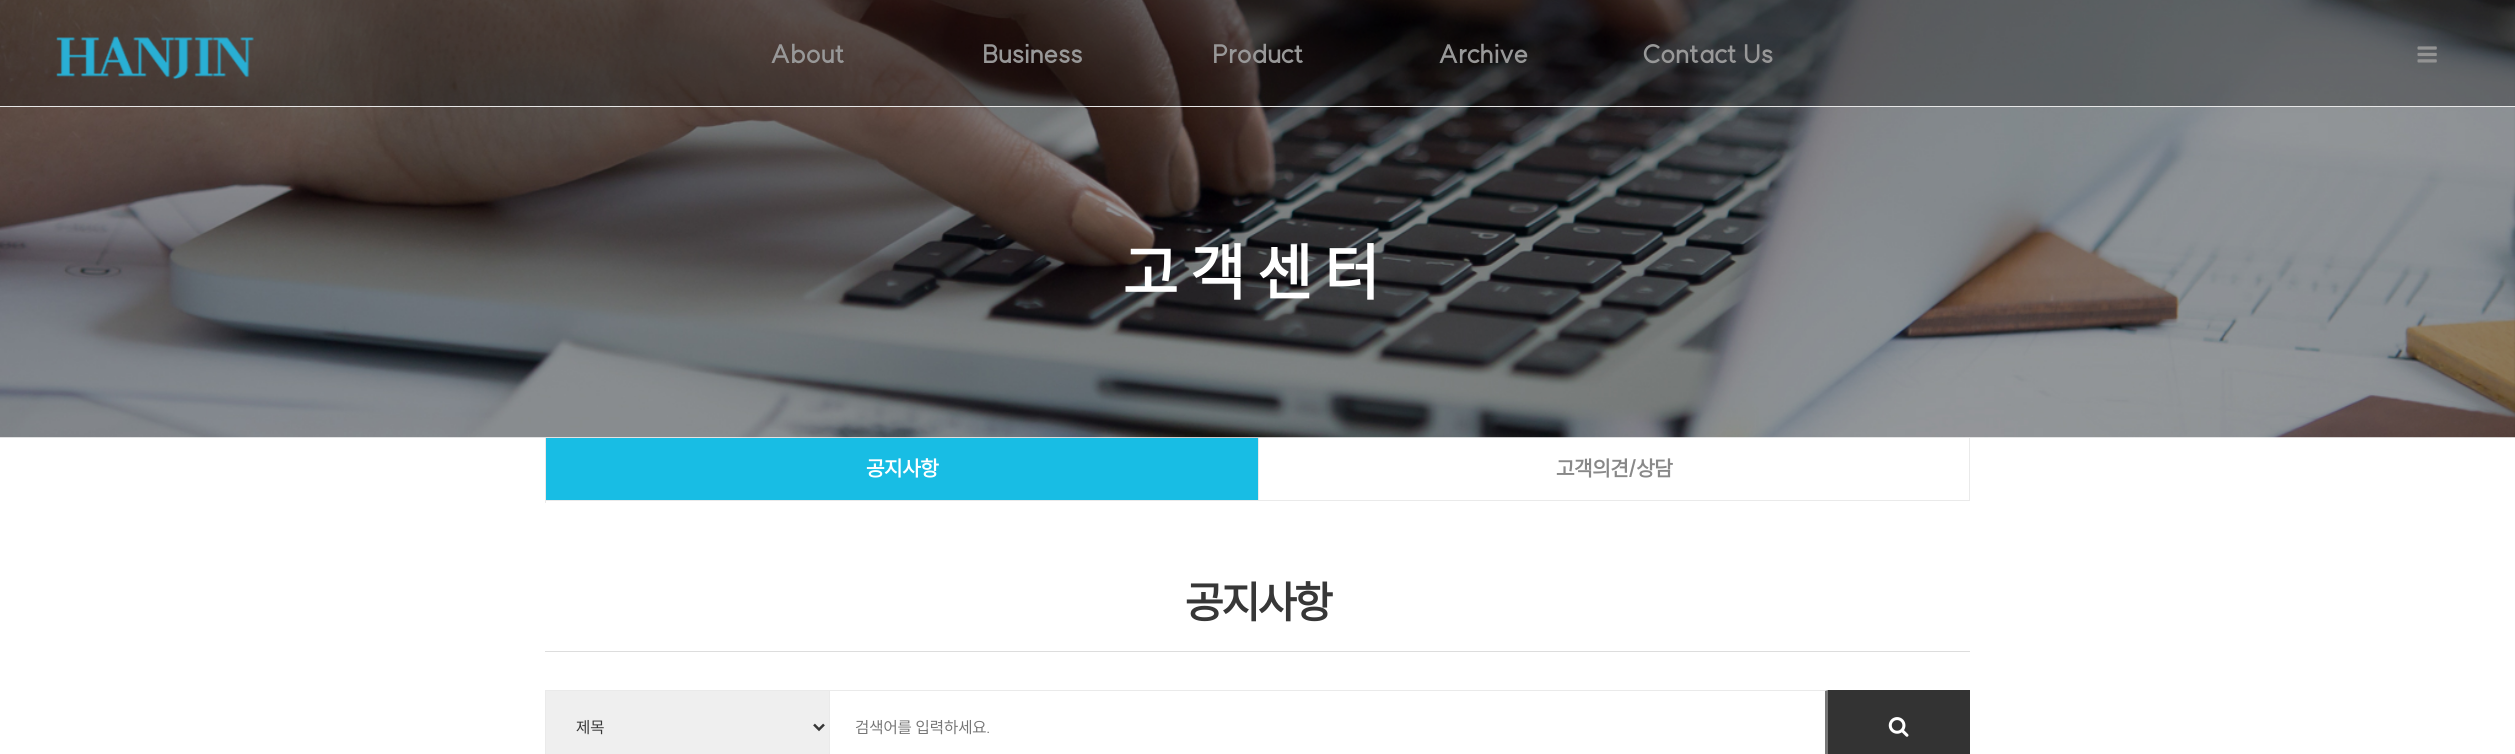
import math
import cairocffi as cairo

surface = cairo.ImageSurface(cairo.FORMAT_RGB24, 2515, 754)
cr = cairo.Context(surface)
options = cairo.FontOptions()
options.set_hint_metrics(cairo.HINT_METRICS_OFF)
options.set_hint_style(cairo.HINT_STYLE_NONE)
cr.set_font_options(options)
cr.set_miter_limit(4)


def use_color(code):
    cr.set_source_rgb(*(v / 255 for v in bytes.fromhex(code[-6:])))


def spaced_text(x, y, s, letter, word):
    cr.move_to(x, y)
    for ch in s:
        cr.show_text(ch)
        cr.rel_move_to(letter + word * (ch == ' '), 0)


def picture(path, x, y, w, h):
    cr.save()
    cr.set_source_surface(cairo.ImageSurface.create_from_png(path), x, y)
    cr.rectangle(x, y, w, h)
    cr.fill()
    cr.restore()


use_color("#ffffff")
cr.paint()
picture("img3.png", 0, 0, 2515, 438)
cr.set_source_rgba(0, 0, 0, 0.3)
cr.rectangle(0, 0, 2515, 106)
cr.fill()
use_color("#e7e7e7")
cr.rectangle(0, 106, 2515, 1)
cr.fill()
picture("img1.png", 56, 36, 198, 44)
cr.select_font_face("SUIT", cairo.FONT_SLANT_NORMAL, cairo.FONT_WEIGHT_BOLD)
cr.set_font_size(25)
use_color("#989898")
cr.move_to(770, 63)
cr.show_text("About")
cr.move_to(982, 63)
cr.show_text("Business")
cr.move_to(1212, 63)
cr.show_text("Product")
cr.move_to(1438, 63)
cr.show_text("Archive")
cr.move_to(1642, 63)
cr.show_text("Contact Us")
picture("img2.png", 2417, 46, 20, 17)
cr.set_font_size(62.5)
use_color("#ffffff")
spaced_text(1123, 295, "고객센터", 12.5, 0)
use_color("#eaeaea")
cr.rectangle(545, 438, 1, 65)
cr.fill()
cr.rectangle(1258, 438, 1, 63)
cr.fill()
cr.rectangle(546, 500, 713, 1)
cr.fill()
use_color("#18bde4")
cr.rectangle(546, 438, 712, 62)
cr.fill()
cr.set_font_size(21.25)
use_color("#ffffff")
spaced_text(866, 476, "공지사항", -0.5, 0)
use_color("#eaeaea")
cr.rectangle(1969, 438, 1, 63)
cr.fill()
cr.rectangle(1259, 500, 711, 1)
cr.fill()
use_color("#888888")
spaced_text(1556, 476, "고객의견/상담", -0.5, 0)
use_color("#dddddd")
cr.rectangle(545, 651, 1425, 1)
cr.fill()
cr.set_font_size(44)
use_color("#373737")
spaced_text(1185, 618, "공지사항", -2, 0)
use_color("#efefef")
cr.rectangle(545.5, 690.5, 284, 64)
cr.fill_preserve()
use_color("#eaeaea")
cr.set_line_width(1)
cr.stroke()
cr.new_path()
cr.move_to(814, 724.5)
cr.line_to(819, 729.5)
cr.line_to(824, 724.5)
use_color("#373737")
cr.set_line_width(2.5)
cr.stroke()
cr.select_font_face("SUIT")
cr.set_font_size(16.25)
cr.move_to(576, 733)
cr.show_text("제목")
use_color("#eaeaea")
cr.new_path()
cr.move_to(830, 690)
cr.line_to(1828, 690)
cr.line_to(1825, 691)
cr.line_to(830, 691)
cr.close_path()
cr.fill()
use_color("#767676")
cr.new_path()
cr.move_to(1828, 690)
cr.line_to(1828, 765)
cr.line_to(1825, 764)
cr.line_to(1825, 691)
cr.close_path()
cr.fill()
use_color("#757575")
cr.move_to(855, 733)
cr.show_text("검색어를 입력하세요.")
use_color("#333333")
cr.rectangle(1828, 690, 142, 64)
cr.fill()
picture("img4.png", 1888, 717, 21, 20)
surface.write_to_png("result.png")
